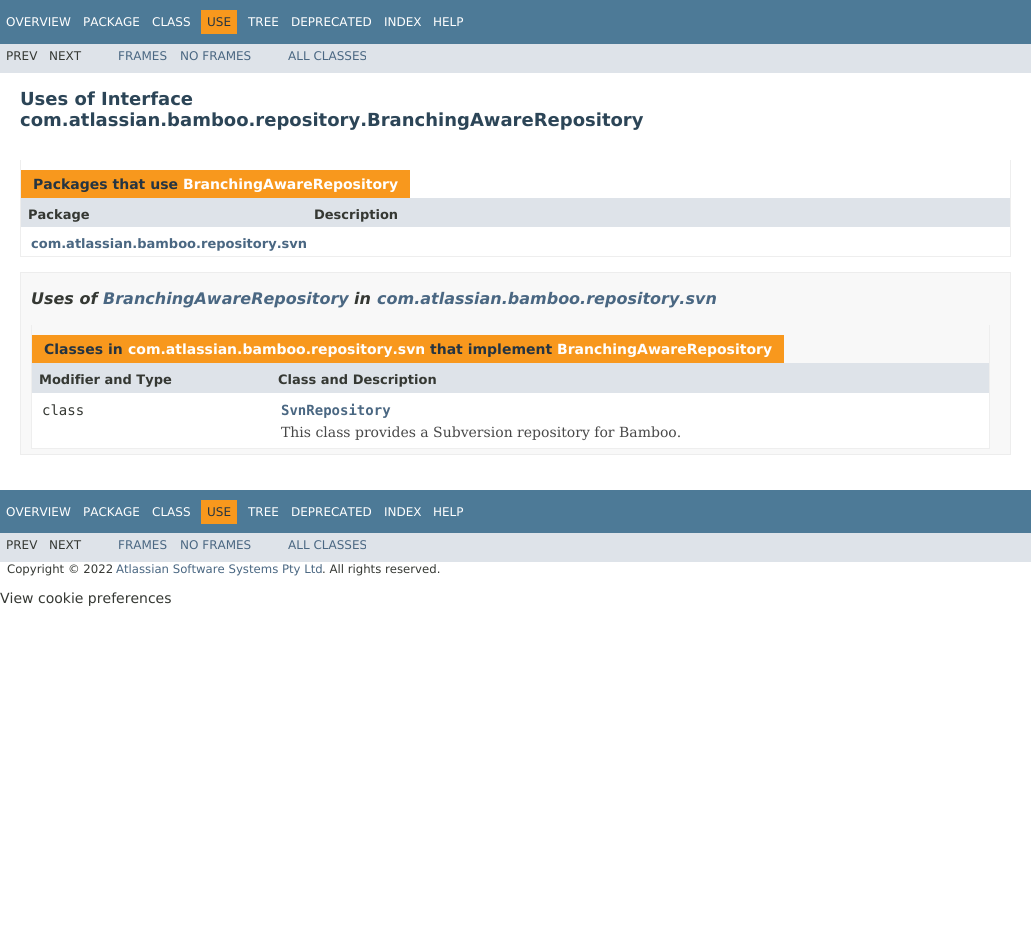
import math
import cairocffi as cairo

surface = cairo.ImageSurface(cairo.FORMAT_RGB24, 1031, 947)
cr = cairo.Context(surface)
options = cairo.FontOptions()
options.set_hint_metrics(cairo.HINT_METRICS_OFF)
options.set_hint_style(cairo.HINT_STYLE_NONE)
cr.set_font_options(options)
cr.set_miter_limit(4)


def use_color(code):
    cr.set_source_rgb(*(v / 255 for v in bytes.fromhex(code[-6:])))


use_color("#ffffff")
cr.paint()
use_color("#4d7a97")
cr.rectangle(0, 0, 1031, 44)
cr.fill()
cr.select_font_face("DejaVu Sans")
cr.set_font_size(12)
use_color("#ffffff")
cr.move_to(6, 26)
cr.show_text("OVERVIEW")
cr.move_to(83, 26)
cr.show_text("PACKAGE")
cr.move_to(152, 26)
cr.show_text("CLASS")
use_color("#f8981d")
cr.rectangle(201, 10, 36, 24)
cr.fill()
use_color("#253441")
cr.move_to(207, 26)
cr.show_text("USE")
use_color("#ffffff")
cr.move_to(248, 26)
cr.show_text("TREE")
cr.move_to(291, 26)
cr.show_text("DEPRECATED")
cr.move_to(384, 26)
cr.show_text("INDEX")
cr.move_to(433, 26)
cr.show_text("HELP")
use_color("#dee3e9")
cr.rectangle(0, 44, 1031, 29)
cr.fill()
use_color("#353833")
cr.move_to(6, 60)
cr.show_text("PREV")
cr.move_to(49, 60)
cr.show_text("NEXT")
use_color("#4a6782")
cr.move_to(118, 60)
cr.show_text("FRAMES")
cr.move_to(180, 60)
cr.show_text("NO FRAMES")
cr.move_to(288, 60)
cr.show_text("ALL CLASSES")
cr.select_font_face("DejaVu Sans", cairo.FONT_SLANT_NORMAL, cairo.FONT_WEIGHT_BOLD)
cr.set_font_size(18)
use_color("#2c4557")
cr.move_to(20, 105)
cr.show_text("Uses of Interface")
cr.move_to(20, 126)
cr.show_text("com.atlassian.bamboo.repository.BranchingAwareRepository")
use_color("#eeeeee")
cr.rectangle(1010, 160, 1, 97)
cr.fill()
cr.rectangle(20, 256, 991, 1)
cr.fill()
cr.rectangle(20, 160, 1, 97)
cr.fill()
use_color("#f8981d")
cr.rectangle(21, 170, 389, 28)
cr.fill()
cr.set_font_size(14)
use_color("#253441")
cr.move_to(33, 189)
cr.show_text("Packages that use")
use_color("#ffffff")
cr.move_to(183, 189)
cr.show_text("BranchingAwareRepository")
use_color("#dee3e9")
cr.rectangle(21, 198, 989, 29)
cr.fill()
cr.set_font_size(13)
use_color("#353833")
cr.move_to(28, 219)
cr.show_text("Package")
cr.move_to(314, 219)
cr.show_text("Description")
use_color("#4a6782")
cr.move_to(31, 248)
cr.show_text("com.atlassian.bamboo.repository.svn")
use_color("#f8f8f8")
cr.rectangle(20.5, 272.5, 990, 182)
cr.fill_preserve()
use_color("#ededed")
cr.set_line_width(1)
cr.stroke()
cr.select_font_face("DejaVu Sans", cairo.FONT_SLANT_ITALIC, cairo.FONT_WEIGHT_BOLD)
cr.set_font_size(16)
use_color("#353833")
cr.move_to(31, 304)
cr.show_text("Uses of")
use_color("#4a6782")
cr.move_to(103, 304)
cr.show_text("BranchingAwareRepository")
use_color("#353833")
cr.move_to(354, 304)
cr.show_text("in")
use_color("#4a6782")
cr.move_to(377, 304)
cr.show_text("com.atlassian.bamboo.repository.svn")
use_color("#eeeeee")
cr.rectangle(989, 325, 1, 124)
cr.fill()
cr.rectangle(31, 448, 959, 1)
cr.fill()
cr.rectangle(31, 325, 1, 124)
cr.fill()
use_color("#f8981d")
cr.rectangle(32, 335, 752, 28)
cr.fill()
cr.select_font_face("DejaVu Sans", cairo.FONT_SLANT_NORMAL, cairo.FONT_WEIGHT_BOLD)
cr.set_font_size(14)
use_color("#253441")
cr.move_to(44, 354)
cr.show_text("Classes in")
use_color("#ffffff")
cr.move_to(128, 354)
cr.show_text("com.atlassian.bamboo.repository.svn")
use_color("#253441")
cr.move_to(430, 354)
cr.show_text("that implement")
use_color("#ffffff")
cr.move_to(557, 354)
cr.show_text("BranchingAwareRepository")
use_color("#dee3e9")
cr.rectangle(32, 363, 957, 30)
cr.fill()
cr.set_font_size(13)
use_color("#353833")
cr.move_to(39, 384)
cr.show_text("Modifier and Type")
cr.move_to(278, 384)
cr.show_text("Class and Description")
use_color("#ffffff")
cr.rectangle(32, 393, 957, 55)
cr.fill()
cr.select_font_face("DejaVu Sans Mono")
cr.set_font_size(14)
use_color("#353833")
cr.move_to(42, 415)
cr.show_text("class")
cr.select_font_face("DejaVu Sans Mono", cairo.FONT_SLANT_NORMAL, cairo.FONT_WEIGHT_BOLD)
use_color("#4a6782")
cr.move_to(281, 415)
cr.show_text("SvnRepository")
cr.select_font_face("DejaVu Serif")
use_color("#474747")
cr.move_to(281, 437)
cr.show_text("This class provides a Subversion repository for Bamboo.")
use_color("#4d7a97")
cr.rectangle(0, 490, 1031, 43)
cr.fill()
cr.select_font_face("DejaVu Sans")
cr.set_font_size(12)
use_color("#ffffff")
cr.move_to(6, 516)
cr.show_text("OVERVIEW")
cr.move_to(83, 516)
cr.show_text("PACKAGE")
cr.move_to(152, 516)
cr.show_text("CLASS")
use_color("#f8981d")
cr.rectangle(201, 500, 36, 24)
cr.fill()
use_color("#253441")
cr.move_to(207, 516)
cr.show_text("USE")
use_color("#ffffff")
cr.move_to(248, 516)
cr.show_text("TREE")
cr.move_to(291, 516)
cr.show_text("DEPRECATED")
cr.move_to(384, 516)
cr.show_text("INDEX")
cr.move_to(433, 516)
cr.show_text("HELP")
use_color("#dee3e9")
cr.rectangle(0, 533, 1031, 29)
cr.fill()
use_color("#353833")
cr.move_to(6, 549)
cr.show_text("PREV")
cr.move_to(49, 549)
cr.show_text("NEXT")
use_color("#4a6782")
cr.move_to(118, 549)
cr.show_text("FRAMES")
cr.move_to(180, 549)
cr.show_text("NO FRAMES")
cr.move_to(288, 549)
cr.show_text("ALL CLASSES")
cr.set_font_size(11.7)
use_color("#353833")
cr.move_to(7, 573)
cr.show_text("Copyright © 2022")
use_color("#4a6782")
cr.move_to(116, 573)
cr.show_text("Atlassian Software Systems Pty Ltd")
use_color("#353833")
cr.move_to(322, 573)
cr.show_text(". All rights reserved.")
cr.set_font_size(14)
cr.move_to(0, 603)
cr.show_text("View cookie preferences")
surface.write_to_png("result.png")
